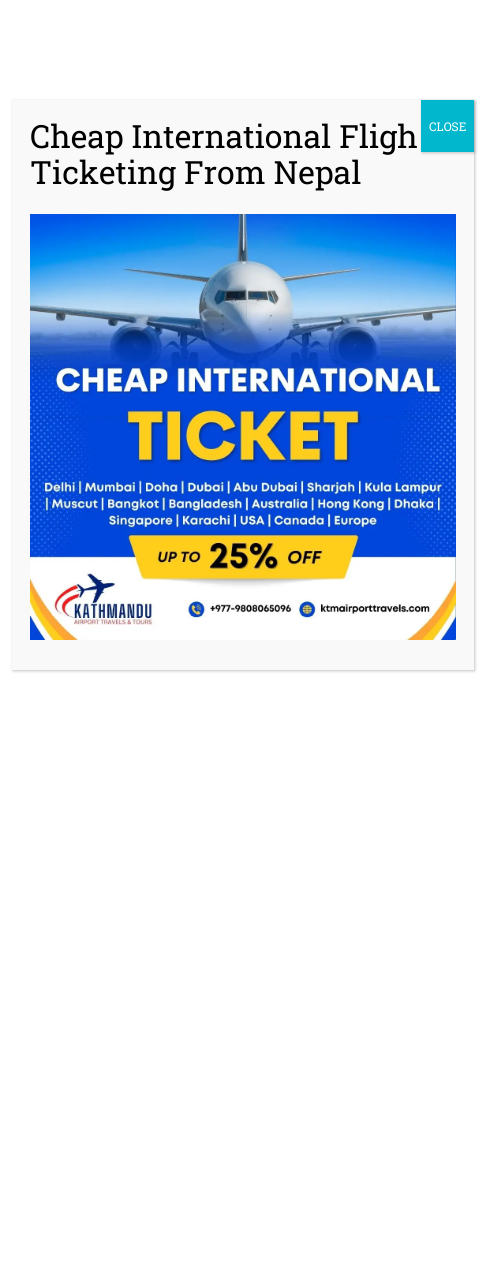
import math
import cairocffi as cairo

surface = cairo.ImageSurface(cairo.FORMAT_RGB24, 486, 1277)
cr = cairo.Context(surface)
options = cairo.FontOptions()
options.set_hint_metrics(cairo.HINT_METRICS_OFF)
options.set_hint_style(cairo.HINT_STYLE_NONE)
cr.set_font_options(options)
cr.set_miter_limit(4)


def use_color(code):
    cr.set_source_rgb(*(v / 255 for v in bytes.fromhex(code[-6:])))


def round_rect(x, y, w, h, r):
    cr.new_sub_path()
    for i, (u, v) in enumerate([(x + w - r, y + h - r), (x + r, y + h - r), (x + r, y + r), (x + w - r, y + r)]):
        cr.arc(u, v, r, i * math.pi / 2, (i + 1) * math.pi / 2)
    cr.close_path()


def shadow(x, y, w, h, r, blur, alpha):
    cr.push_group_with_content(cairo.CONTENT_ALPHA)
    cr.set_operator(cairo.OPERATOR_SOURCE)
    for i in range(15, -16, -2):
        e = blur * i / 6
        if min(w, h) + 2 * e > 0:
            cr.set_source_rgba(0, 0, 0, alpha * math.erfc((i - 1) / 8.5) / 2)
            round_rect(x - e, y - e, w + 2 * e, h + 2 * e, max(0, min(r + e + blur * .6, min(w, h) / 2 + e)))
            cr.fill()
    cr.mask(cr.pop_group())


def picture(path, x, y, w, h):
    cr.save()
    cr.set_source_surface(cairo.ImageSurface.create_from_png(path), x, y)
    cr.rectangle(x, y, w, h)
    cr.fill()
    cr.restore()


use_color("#ffffff")
cr.paint()
use_color("#020202")
shadow(13, 101, 462, 570, 0, 1.5, 0.23)
use_color("#f9f9f9")
cr.rectangle(12, 100, 462, 570)
cr.fill()
cr.select_font_face("Roboto Slab")
cr.set_font_size(32)
use_color("#000000")
cr.move_to(30, 148)
cr.show_text("Cheap International Fligh")
cr.move_to(30, 184)
cr.show_text("Ticketing From Nepal")
use_color("#020202")
shadow(422, 101, 53, 52, 0, 1.5, 0.23)
use_color("#00b7cd")
cr.rectangle(421, 100, 53, 52)
cr.fill()
cr.set_font_size(12)
use_color("#ffffff")
cr.move_to(429, 131)
cr.show_text("CLOSE")
picture("img1.png", 30, 214, 426, 426)
surface.write_to_png("result.png")
